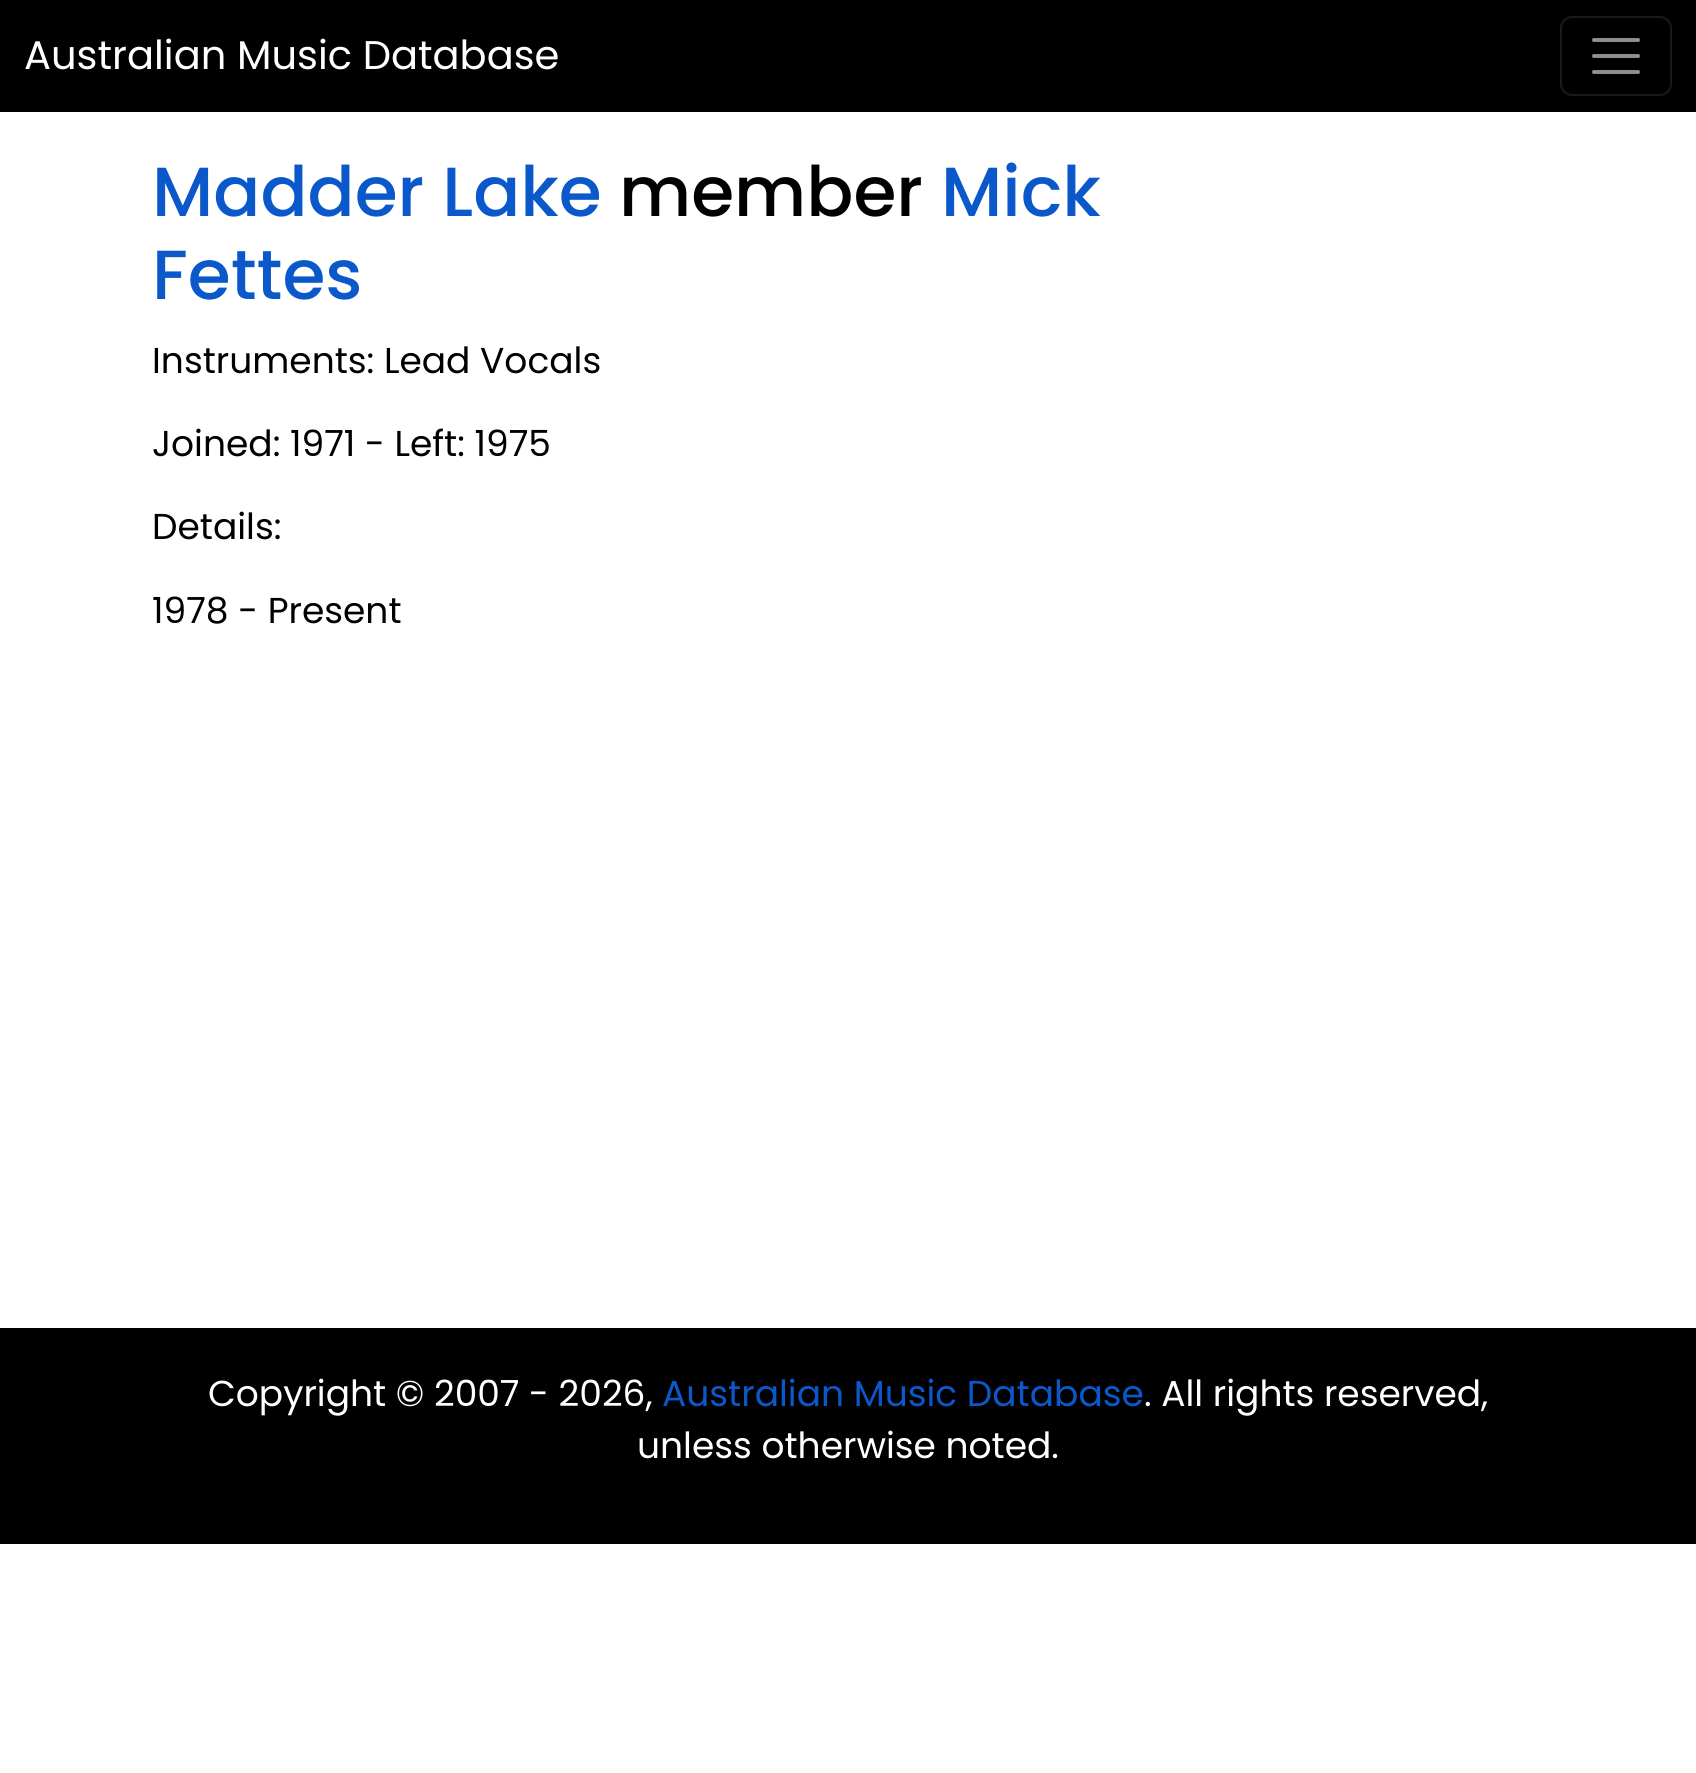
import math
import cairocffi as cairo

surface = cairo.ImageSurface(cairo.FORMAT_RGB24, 1696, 1773)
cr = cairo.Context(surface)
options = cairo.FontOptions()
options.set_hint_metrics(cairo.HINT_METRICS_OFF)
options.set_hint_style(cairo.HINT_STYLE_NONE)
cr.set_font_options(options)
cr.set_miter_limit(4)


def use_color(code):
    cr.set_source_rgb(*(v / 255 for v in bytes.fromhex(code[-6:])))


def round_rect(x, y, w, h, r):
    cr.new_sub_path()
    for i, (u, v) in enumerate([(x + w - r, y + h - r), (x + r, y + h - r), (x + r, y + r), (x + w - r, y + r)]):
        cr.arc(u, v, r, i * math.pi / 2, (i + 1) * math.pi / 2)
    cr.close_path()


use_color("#ffffff")
cr.paint()
use_color("#000000")
cr.rectangle(0, 0, 1696, 112)
cr.fill()
cr.select_font_face("Poppins")
cr.set_font_size(40)
use_color("#ffffff")
cr.move_to(24, 69)
cr.show_text("Australian Music Database")
round_rect(1561, 17, 110, 78, 11)
use_color("#1a1a1a")
cr.stroke()
cr.new_path()
cr.move_to(1594, 40)
cr.line_to(1638, 40)
cr.move_to(1594, 56)
cr.line_to(1638, 56)
cr.move_to(1594, 72)
cr.line_to(1638, 72)
use_color("#8c8c8c")
cr.set_line_width(4)
cr.set_line_cap(cairo.LINE_CAP_ROUND)
cr.stroke()
cr.select_font_face("Poppins Medium")
cr.set_font_size(69.5)
use_color("#0a58ca")
cr.move_to(152, 216)
cr.show_text("Madder Lake")
use_color("#000000")
cr.move_to(619, 216)
cr.show_text("member")
use_color("#0a58ca")
cr.move_to(941, 216)
cr.show_text("Mick")
cr.move_to(152, 299)
cr.show_text("Fettes")
cr.select_font_face("Poppins")
cr.set_font_size(36)
use_color("#000000")
cr.move_to(152, 373)
cr.show_text("Instruments: Lead Vocals")
cr.move_to(152, 456)
cr.show_text("Joined: 1971 - Left: 1975")
cr.move_to(152, 539)
cr.show_text("Details:")
cr.move_to(152, 623)
cr.show_text("1978 - Present")
cr.rectangle(0, 1328, 1696, 216)
cr.fill()
use_color("#ffffff")
cr.move_to(208, 1406)
cr.show_text("Copyright © 2007 - 2026,")
use_color("#0a58ca")
cr.move_to(662, 1406)
cr.show_text("Australian Music Database")
use_color("#ffffff")
cr.move_to(1144, 1406)
cr.show_text(". All rights reserved,")
cr.move_to(637, 1458)
cr.show_text("unless otherwise noted.")
surface.write_to_png("result.png")
